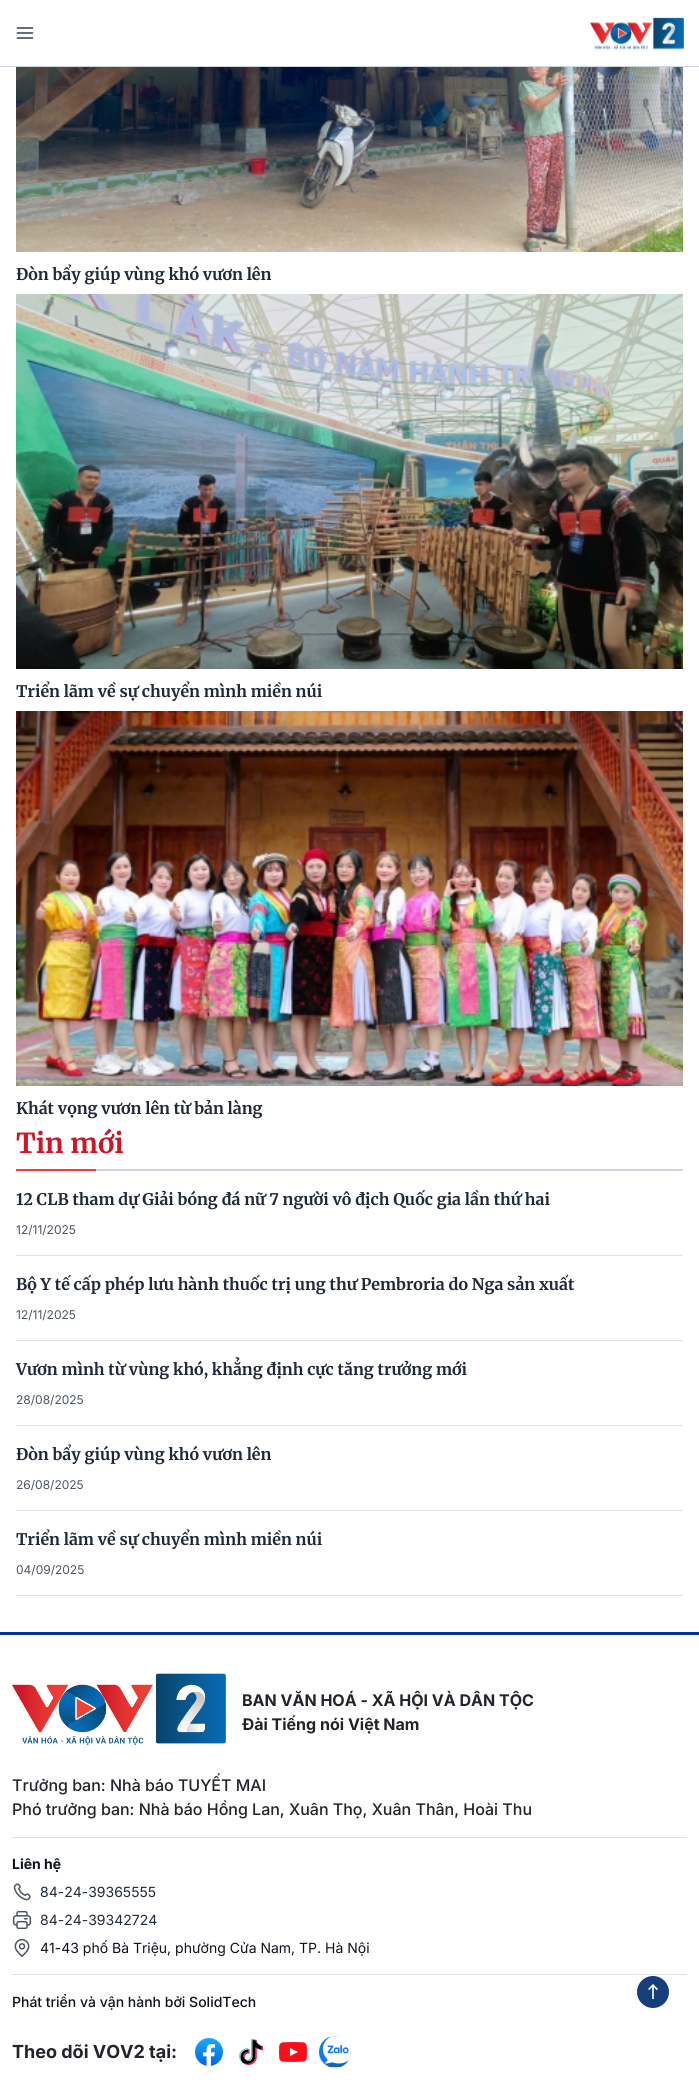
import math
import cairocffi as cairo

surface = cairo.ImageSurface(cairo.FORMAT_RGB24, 699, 2088)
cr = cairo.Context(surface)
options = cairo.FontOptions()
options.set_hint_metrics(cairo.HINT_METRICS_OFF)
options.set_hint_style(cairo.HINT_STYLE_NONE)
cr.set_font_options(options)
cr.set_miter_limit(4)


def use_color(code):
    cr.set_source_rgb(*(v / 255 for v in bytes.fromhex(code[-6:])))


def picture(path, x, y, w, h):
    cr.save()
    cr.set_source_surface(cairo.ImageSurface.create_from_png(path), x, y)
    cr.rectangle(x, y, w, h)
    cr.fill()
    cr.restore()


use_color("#ffffff")
cr.paint()
use_color("#cdd5df")
cr.rectangle(0, 66, 699, 1)
cr.fill()
cr.new_path()
cr.move_to(17.5, 33)
cr.line_to(32.5, 33)
cr.move_to(17.5, 28)
cr.line_to(32.5, 28)
cr.move_to(17.5, 38)
cr.line_to(32.5, 38)
use_color("#4b5565")
cr.set_line_width(1.7)
cr.set_line_cap(cairo.LINE_CAP_ROUND)
cr.set_line_join(cairo.LINE_JOIN_ROUND)
cr.stroke()
picture("img1.png", 590, 17, 94, 33)
picture("img2.png", 16, 67, 667, 185)
cr.select_font_face("Merriweather", cairo.FONT_SLANT_NORMAL, cairo.FONT_WEIGHT_BOLD)
cr.set_font_size(16)
use_color("#202939")
cr.move_to(16, 280)
cr.show_text("Đòn bẩy giúp vùng khó vươn lên")
picture("img3.png", 16, 294, 667, 375)
cr.move_to(16, 697)
cr.show_text("Triển lãm về sự chuyển mình miền núi")
picture("img4.png", 16, 711, 667, 375)
cr.move_to(16, 1114)
cr.show_text("Khát vọng vươn lên từ bản làng")
cr.set_font_size(27.5)
use_color("#ce1628")
cr.move_to(16, 1153)
cr.show_text("Tin mới")
use_color("#cdd5df")
cr.rectangle(96, 1169, 587, 2)
cr.fill()
use_color("#ef4135")
cr.rectangle(16, 1169, 80, 2)
cr.fill()
cr.set_font_size(16)
use_color("#202939")
cr.move_to(16, 1205)
cr.show_text("12 CLB tham dự Giải bóng đá nữ 7 người vô địch Quốc gia lần thứ hai")
cr.select_font_face("Inter")
cr.set_font_size(12)
use_color("#4b5565")
cr.move_to(16, 1234)
cr.show_text("12/11/2025")
use_color("#dee2e6")
cr.rectangle(16, 1255, 667, 1)
cr.fill()
cr.select_font_face("Merriweather", cairo.FONT_SLANT_NORMAL, cairo.FONT_WEIGHT_BOLD)
cr.set_font_size(16)
use_color("#202939")
cr.move_to(16, 1290)
cr.show_text("Bộ Y tế cấp phép lưu hành thuốc trị ung thư Pembroria do Nga sản xuất")
cr.select_font_face("Inter")
cr.set_font_size(12)
use_color("#4b5565")
cr.move_to(16, 1319)
cr.show_text("12/11/2025")
use_color("#dee2e6")
cr.rectangle(16, 1340, 667, 1)
cr.fill()
cr.select_font_face("Merriweather", cairo.FONT_SLANT_NORMAL, cairo.FONT_WEIGHT_BOLD)
cr.set_font_size(16)
use_color("#202939")
cr.move_to(16, 1375)
cr.show_text("Vươn mình từ vùng khó, khẳng định cực tăng trưởng mới")
cr.select_font_face("Inter")
cr.set_font_size(12)
use_color("#4b5565")
cr.move_to(16, 1404)
cr.show_text("28/08/2025")
use_color("#dee2e6")
cr.rectangle(16, 1425, 667, 1)
cr.fill()
cr.select_font_face("Merriweather", cairo.FONT_SLANT_NORMAL, cairo.FONT_WEIGHT_BOLD)
cr.set_font_size(16)
use_color("#202939")
cr.move_to(16, 1460)
cr.show_text("Đòn bẩy giúp vùng khó vươn lên")
cr.select_font_face("Inter")
cr.set_font_size(12)
use_color("#4b5565")
cr.move_to(16, 1489)
cr.show_text("26/08/2025")
use_color("#dee2e6")
cr.rectangle(16, 1510, 667, 1)
cr.fill()
cr.select_font_face("Merriweather", cairo.FONT_SLANT_NORMAL, cairo.FONT_WEIGHT_BOLD)
cr.set_font_size(16)
use_color("#202939")
cr.move_to(16, 1545)
cr.show_text("Triển lãm về sự chuyển mình miền núi")
cr.select_font_face("Inter")
cr.set_font_size(12)
use_color("#4b5565")
cr.move_to(16, 1574)
cr.show_text("04/09/2025")
use_color("#dee2e6")
cr.rectangle(16, 1595, 667, 1)
cr.fill()
use_color("#00359e")
cr.rectangle(0, 1632, 699, 3)
cr.fill()
picture("img5.png", 12, 1673, 214, 72)
cr.select_font_face("Inter", cairo.FONT_SLANT_NORMAL, cairo.FONT_WEIGHT_BOLD)
cr.set_font_size(16)
use_color("#212529")
cr.move_to(242, 1706)
cr.show_text("BAN VĂN HOÁ - XÃ HỘI VÀ DÂN TỘC")
cr.move_to(242, 1730)
cr.show_text("Đài Tiếng nói Việt Nam")
cr.select_font_face("Inter Medium")
cr.move_to(12, 1791)
cr.show_text("Trưởng ban: Nhà báo TUYẾT MAI")
cr.move_to(12, 1815)
cr.show_text("Phó trưởng ban: Nhà báo Hồng Lan, Xuân Thọ, Xuân Thân, Hoài Thu")
use_color("#dee2e6")
cr.rectangle(12, 1837, 675, 1)
cr.fill()
cr.select_font_face("Inter", cairo.FONT_SLANT_NORMAL, cairo.FONT_WEIGHT_BOLD)
cr.set_font_size(14)
use_color("#0d121c")
cr.move_to(12, 1869)
cr.show_text("Liên hệ")
picture("img6.png", 13, 1883, 18, 18)
cr.select_font_face("Inter")
use_color("#202939")
cr.move_to(40, 1897)
cr.show_text("84-24-39365555")
picture("img7.png", 12, 1910, 20, 20)
cr.move_to(40, 1925)
cr.show_text("84-24-39342724")
picture("img8.png", 14, 1938, 16, 19)
use_color("#0d121c")
cr.move_to(40, 1953)
cr.show_text("41-43 phố Bà Triệu, phường Cửa Nam, TP. Hà Nội")
use_color("#dee2e6")
cr.rectangle(12, 1974, 675, 1)
cr.fill()
cr.select_font_face("Inter Medium")
use_color("#0d121c")
cr.move_to(12, 2007)
cr.show_text("Phát triển và vận hành bởi SolidTech")
cr.select_font_face("Inter", cairo.FONT_SLANT_NORMAL, cairo.FONT_WEIGHT_BOLD)
cr.set_font_size(18)
use_color("#212529")
cr.move_to(12, 2058)
cr.show_text("Theo dõi VOV2 tại:")
picture("img9.png", 195, 2038, 28, 28)
picture("img10.png", 239, 2039, 24, 26)
picture("img11.png", 279, 2042, 28, 20)
picture("img12.png", 319, 2036, 32, 32)
use_color("#163e7b")
cr.arc(653, 1992, 16, 0, 2 * math.pi)
cr.fill()
picture("img13.png", 648, 1984, 10, 15)
surface.write_to_png("result.png")
